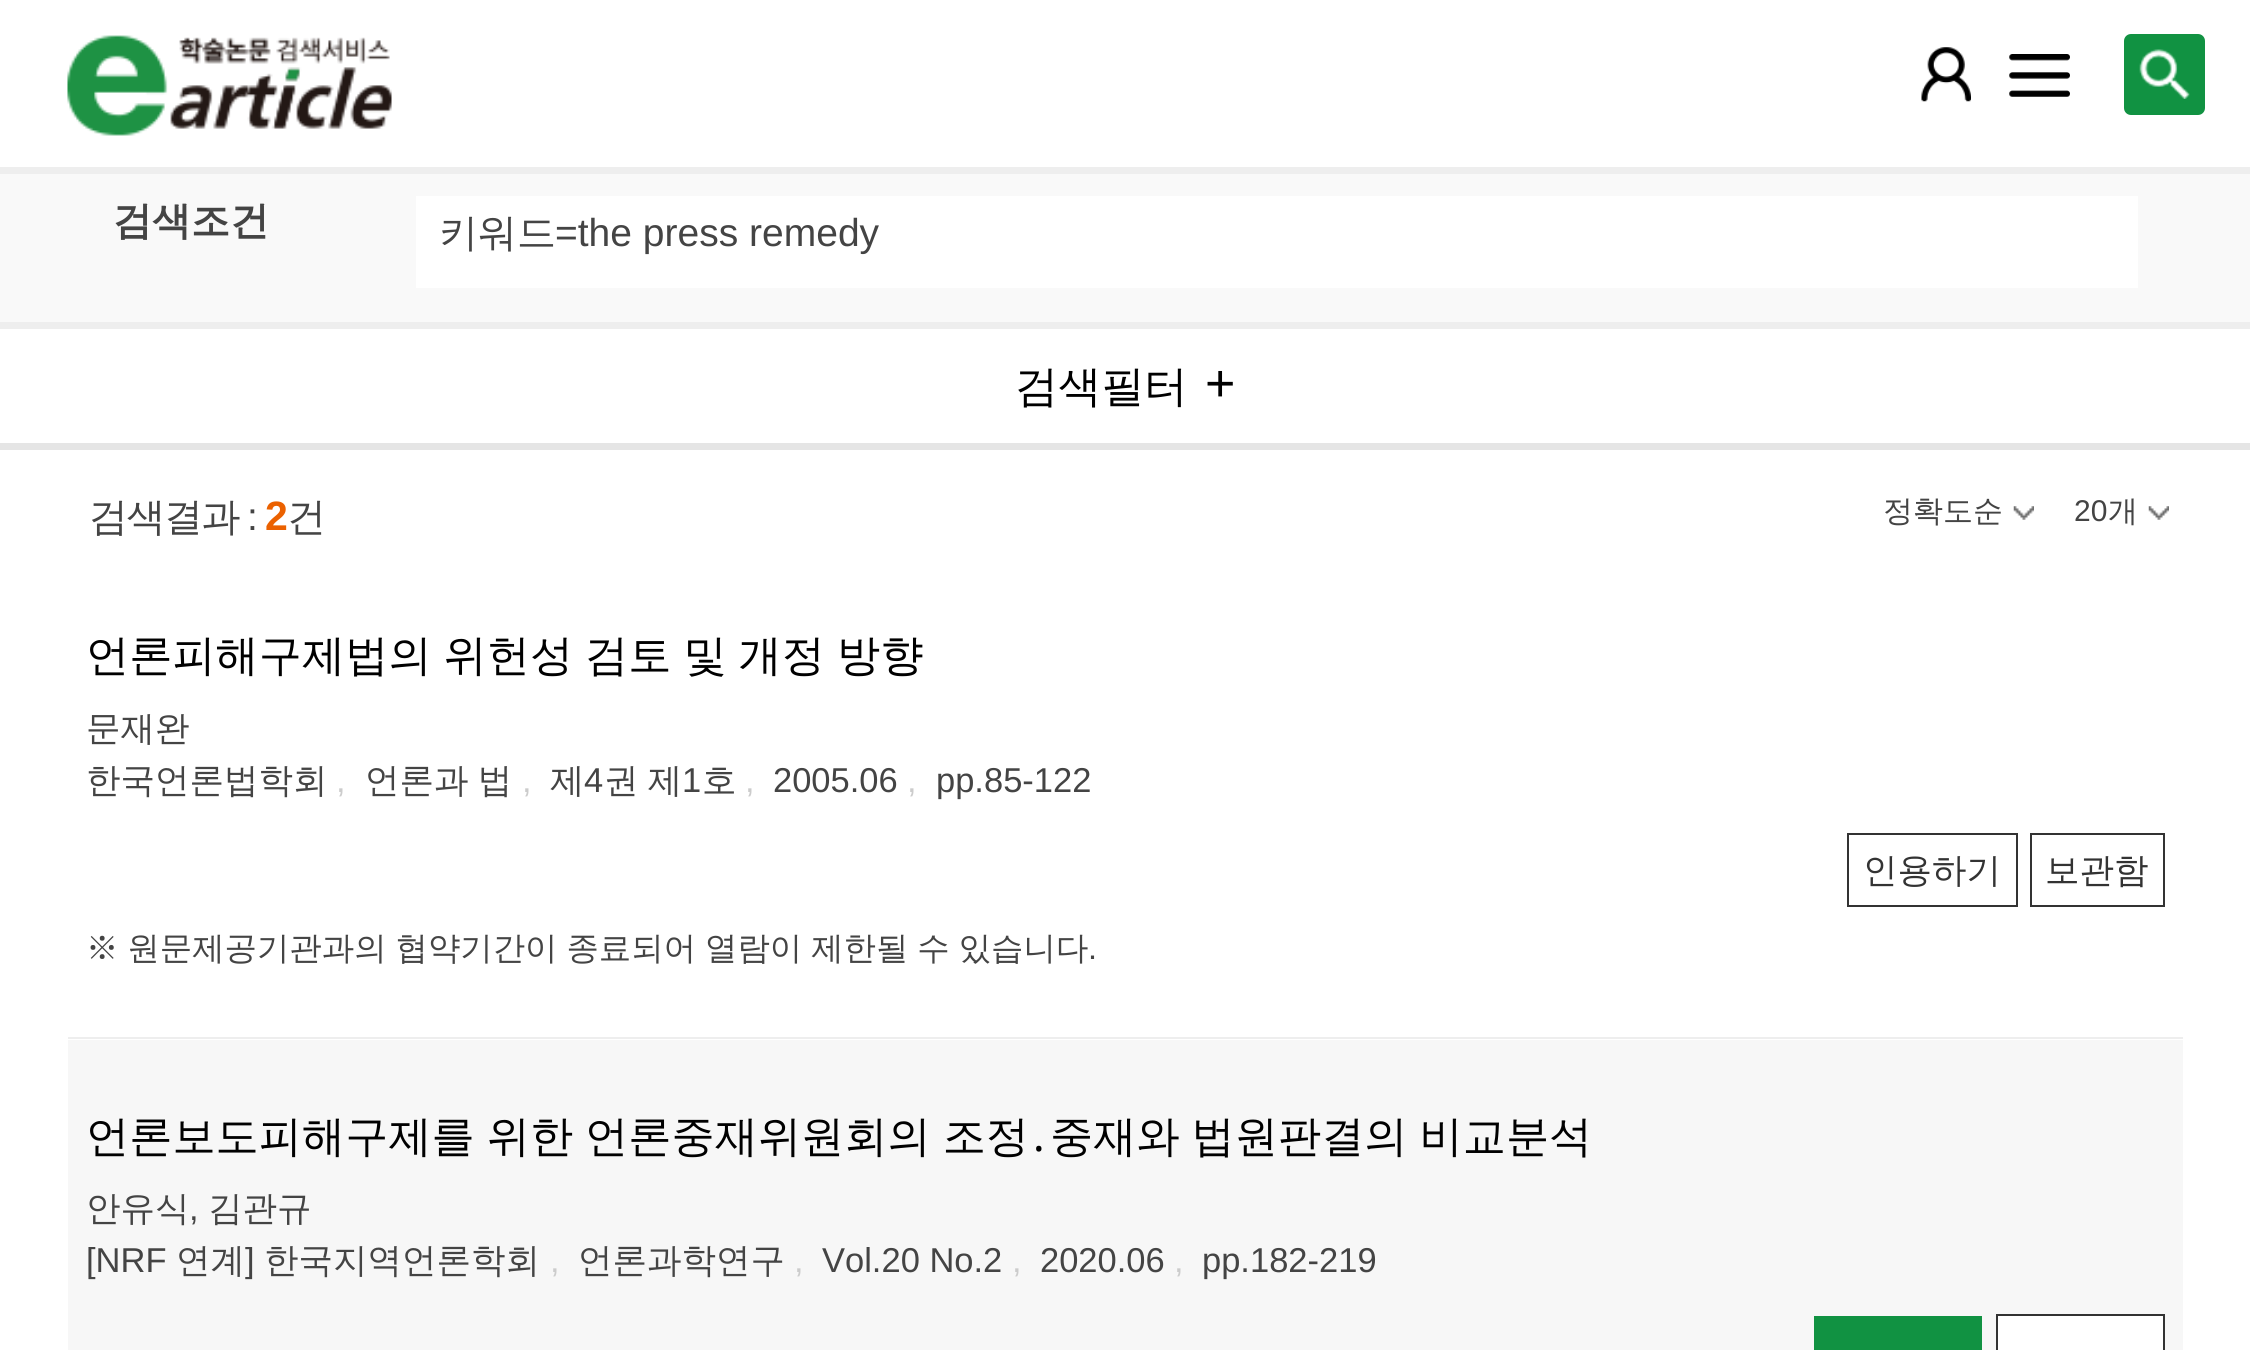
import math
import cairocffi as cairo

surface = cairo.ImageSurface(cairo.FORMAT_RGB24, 2250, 1350)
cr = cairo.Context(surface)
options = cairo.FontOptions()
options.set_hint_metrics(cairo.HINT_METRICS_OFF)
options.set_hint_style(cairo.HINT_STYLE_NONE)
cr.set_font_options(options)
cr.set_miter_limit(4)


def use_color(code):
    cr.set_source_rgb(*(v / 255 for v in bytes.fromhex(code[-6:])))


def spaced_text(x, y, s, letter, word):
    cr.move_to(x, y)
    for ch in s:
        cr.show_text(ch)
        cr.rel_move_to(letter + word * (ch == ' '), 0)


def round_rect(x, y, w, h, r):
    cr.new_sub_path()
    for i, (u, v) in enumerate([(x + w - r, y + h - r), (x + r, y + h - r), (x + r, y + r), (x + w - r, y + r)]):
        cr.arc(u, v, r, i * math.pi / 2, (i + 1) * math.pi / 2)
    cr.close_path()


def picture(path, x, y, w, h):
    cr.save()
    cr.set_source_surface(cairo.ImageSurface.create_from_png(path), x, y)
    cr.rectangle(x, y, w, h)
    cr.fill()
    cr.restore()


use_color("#ffffff")
cr.paint()
picture("img1.png", 67, 35, 325, 101)
picture("img2.png", 1921, 47, 50, 55)
picture("img3.png", 2009, 54, 61, 43)
use_color("#119242")
round_rect(2124, 34, 81, 81, 7)
cr.fill()
picture("img4.png", 2139, 49, 51, 50)
use_color("#f9f9f9")
cr.rectangle(0, 174, 2250, 148)
cr.fill()
use_color("#eeeeee")
cr.rectangle(0, 167, 2250, 7)
cr.fill()
cr.select_font_face("WenQuanYi Zen Hei", cairo.FONT_SLANT_NORMAL, cairo.FONT_WEIGHT_BOLD)
cr.set_font_size(39)
use_color("#444444")
cr.move_to(113, 234)
cr.show_text("검색조건")
use_color("#ffffff")
cr.rectangle(416, 196, 1722, 92)
cr.fill()
cr.select_font_face("WenQuanYi Zen Hei Medium")
use_color("#444444")
cr.move_to(439, 246)
cr.show_text("키워드")
cr.select_font_face("Liberation Sans")
cr.move_to(555, 246)
cr.show_text("=the press remedy")
use_color("#eeeeee")
cr.rectangle(0, 322, 2250, 7)
cr.fill()
use_color("#e5e5e5")
cr.rectangle(0, 443, 2250, 7)
cr.fill()
cr.select_font_face("WenQuanYi Zen Hei Medium")
cr.set_font_size(43.2)
use_color("#000000")
cr.move_to(1015, 401)
cr.show_text("검색필터")
cr.select_font_face("Liberation Sans")
cr.set_font_size(52)
cr.move_to(1205, 401)
cr.show_text("+")
cr.select_font_face("WenQuanYi Zen Hei Medium")
cr.set_font_size(39)
use_color("#444444")
spaced_text(89, 530, "검색결과", -1.5, 0)
cr.select_font_face("Liberation Sans")
spaced_text(247, 530, ":", -1.5, 0)
cr.select_font_face("Liberation Sans", cairo.FONT_SLANT_NORMAL, cairo.FONT_WEIGHT_BOLD)
cr.set_font_size(41)
use_color("#eb6100")
spaced_text(265, 530, "2", -1.5, 0)
cr.select_font_face("WenQuanYi Zen Hei Medium")
cr.set_font_size(39)
use_color("#444444")
spaced_text(287, 530, "건", -1.5, 0)
picture("img5.png", 2013, 506, 21, 14)
cr.set_font_size(30)
cr.move_to(1883, 521)
cr.show_text("정확도순")
picture("img6.png", 2148, 506, 21, 14)
cr.select_font_face("Liberation Sans")
cr.move_to(2074, 521)
cr.show_text("20")
cr.select_font_face("WenQuanYi Zen Hei Medium")
cr.move_to(2108, 521)
cr.show_text("개")
use_color("#eeeeee")
cr.rectangle(68, 1037, 2115, 2)
cr.fill()
cr.set_font_size(43.2)
use_color("#000000")
spaced_text(86, 670, "언론피해구제법의 위헌성 검토 및 개정 방향", 0, -1)
cr.set_font_size(34.5)
use_color("#444444")
cr.move_to(86, 740)
cr.show_text("문재완")
cr.move_to(86, 792)
cr.show_text("한국언론법학회")
cr.select_font_face("Liberation Sans")
use_color("#cccccc")
cr.move_to(336, 792)
cr.show_text(",")
cr.select_font_face("WenQuanYi Zen Hei Medium")
use_color("#444444")
spaced_text(365, 792, "언론과 법", 0, -1)
cr.select_font_face("Liberation Sans")
use_color("#cccccc")
cr.move_to(522, 792)
cr.show_text(",")
cr.select_font_face("WenQuanYi Zen Hei Medium")
use_color("#444444")
cr.move_to(550, 792)
cr.show_text("제")
cr.select_font_face("Liberation Sans")
cr.move_to(584, 792)
cr.show_text("4")
cr.select_font_face("WenQuanYi Zen Hei Medium")
spaced_text(604, 792, "권 제", 0, -1)
cr.select_font_face("Liberation Sans")
cr.move_to(682, 792)
cr.show_text("1")
cr.select_font_face("WenQuanYi Zen Hei Medium")
cr.move_to(702, 792)
cr.show_text("호")
cr.select_font_face("Liberation Sans")
use_color("#cccccc")
cr.move_to(745, 792)
cr.show_text(",")
use_color("#444444")
cr.move_to(773, 792)
cr.show_text("2005.06")
use_color("#cccccc")
cr.move_to(907, 792)
cr.show_text(",")
use_color("#444444")
cr.move_to(936, 792)
cr.show_text("pp.85-122")
cr.rectangle(1848, 834, 169, 72)
use_color("#333333")
cr.stroke()
cr.select_font_face("WenQuanYi Zen Hei Medium")
cr.move_to(1863, 882)
cr.show_text("인용하기")
cr.rectangle(2031, 834, 133, 72)
cr.stroke()
cr.move_to(2045, 882)
cr.show_text("보관함")
cr.set_font_size(32.4)
use_color("#444444")
spaced_text(86, 959, "※ 원문제공기관과의 협약기간이 종료되어 열람이 제한될 수 있습니다", 0, -0.75)
cr.select_font_face("Liberation Sans")
cr.move_to(1088, 959)
cr.show_text(".")
use_color("#f7f7f7")
cr.rectangle(68, 1040, 2115, 310)
cr.fill()
cr.select_font_face("WenQuanYi Zen Hei Medium")
cr.set_font_size(43.2)
use_color("#000000")
spaced_text(86, 1151, "언론보도피해구제를 위한 언론중재위원회의 조정", 0, -1)
cr.select_font_face("Noto Sans")
cr.move_to(1028, 1151)
cr.show_text("․")
cr.select_font_face("WenQuanYi Zen Hei Medium")
spaced_text(1050, 1151, "중재와 법원판결의 비교분석", 0, -1)
cr.set_font_size(34.5)
use_color("#444444")
cr.move_to(86, 1220)
cr.show_text("안유식")
cr.select_font_face("Liberation Sans")
cr.move_to(189, 1220)
cr.show_text(",")
cr.select_font_face("WenQuanYi Zen Hei Medium")
cr.move_to(208, 1220)
cr.show_text("김관규")
cr.select_font_face("Liberation Sans")
cr.move_to(86, 1272)
cr.show_text("[NRF")
cr.select_font_face("WenQuanYi Zen Hei Medium")
cr.move_to(176, 1272)
cr.show_text("연계")
cr.select_font_face("Liberation Sans")
cr.move_to(245, 1272)
cr.show_text("]")
cr.select_font_face("WenQuanYi Zen Hei Medium")
cr.move_to(264, 1272)
cr.show_text("한국지역언론학회")
cr.select_font_face("Liberation Sans")
use_color("#cccccc")
cr.move_to(550, 1272)
cr.show_text(",")
cr.select_font_face("WenQuanYi Zen Hei Medium")
use_color("#444444")
cr.move_to(578, 1272)
cr.show_text("언론과학연구")
cr.select_font_face("Liberation Sans")
use_color("#cccccc")
cr.move_to(794, 1272)
cr.show_text(",")
use_color("#444444")
cr.move_to(822, 1272)
cr.show_text("Vol.20 No.2")
use_color("#cccccc")
cr.move_to(1012, 1272)
cr.show_text(",")
use_color("#444444")
cr.move_to(1040, 1272)
cr.show_text("2020.06")
use_color("#cccccc")
cr.move_to(1174, 1272)
cr.show_text(",")
use_color("#444444")
cr.move_to(1202, 1272)
cr.show_text("pp.182-219")
use_color("#119242")
cr.rectangle(1814, 1316, 168, 34)
cr.fill()
use_color("#ffffff")
cr.rectangle(1997, 1315, 167, 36)
cr.fill_preserve()
use_color("#333333")
cr.stroke()
surface.write_to_png("result.png")
